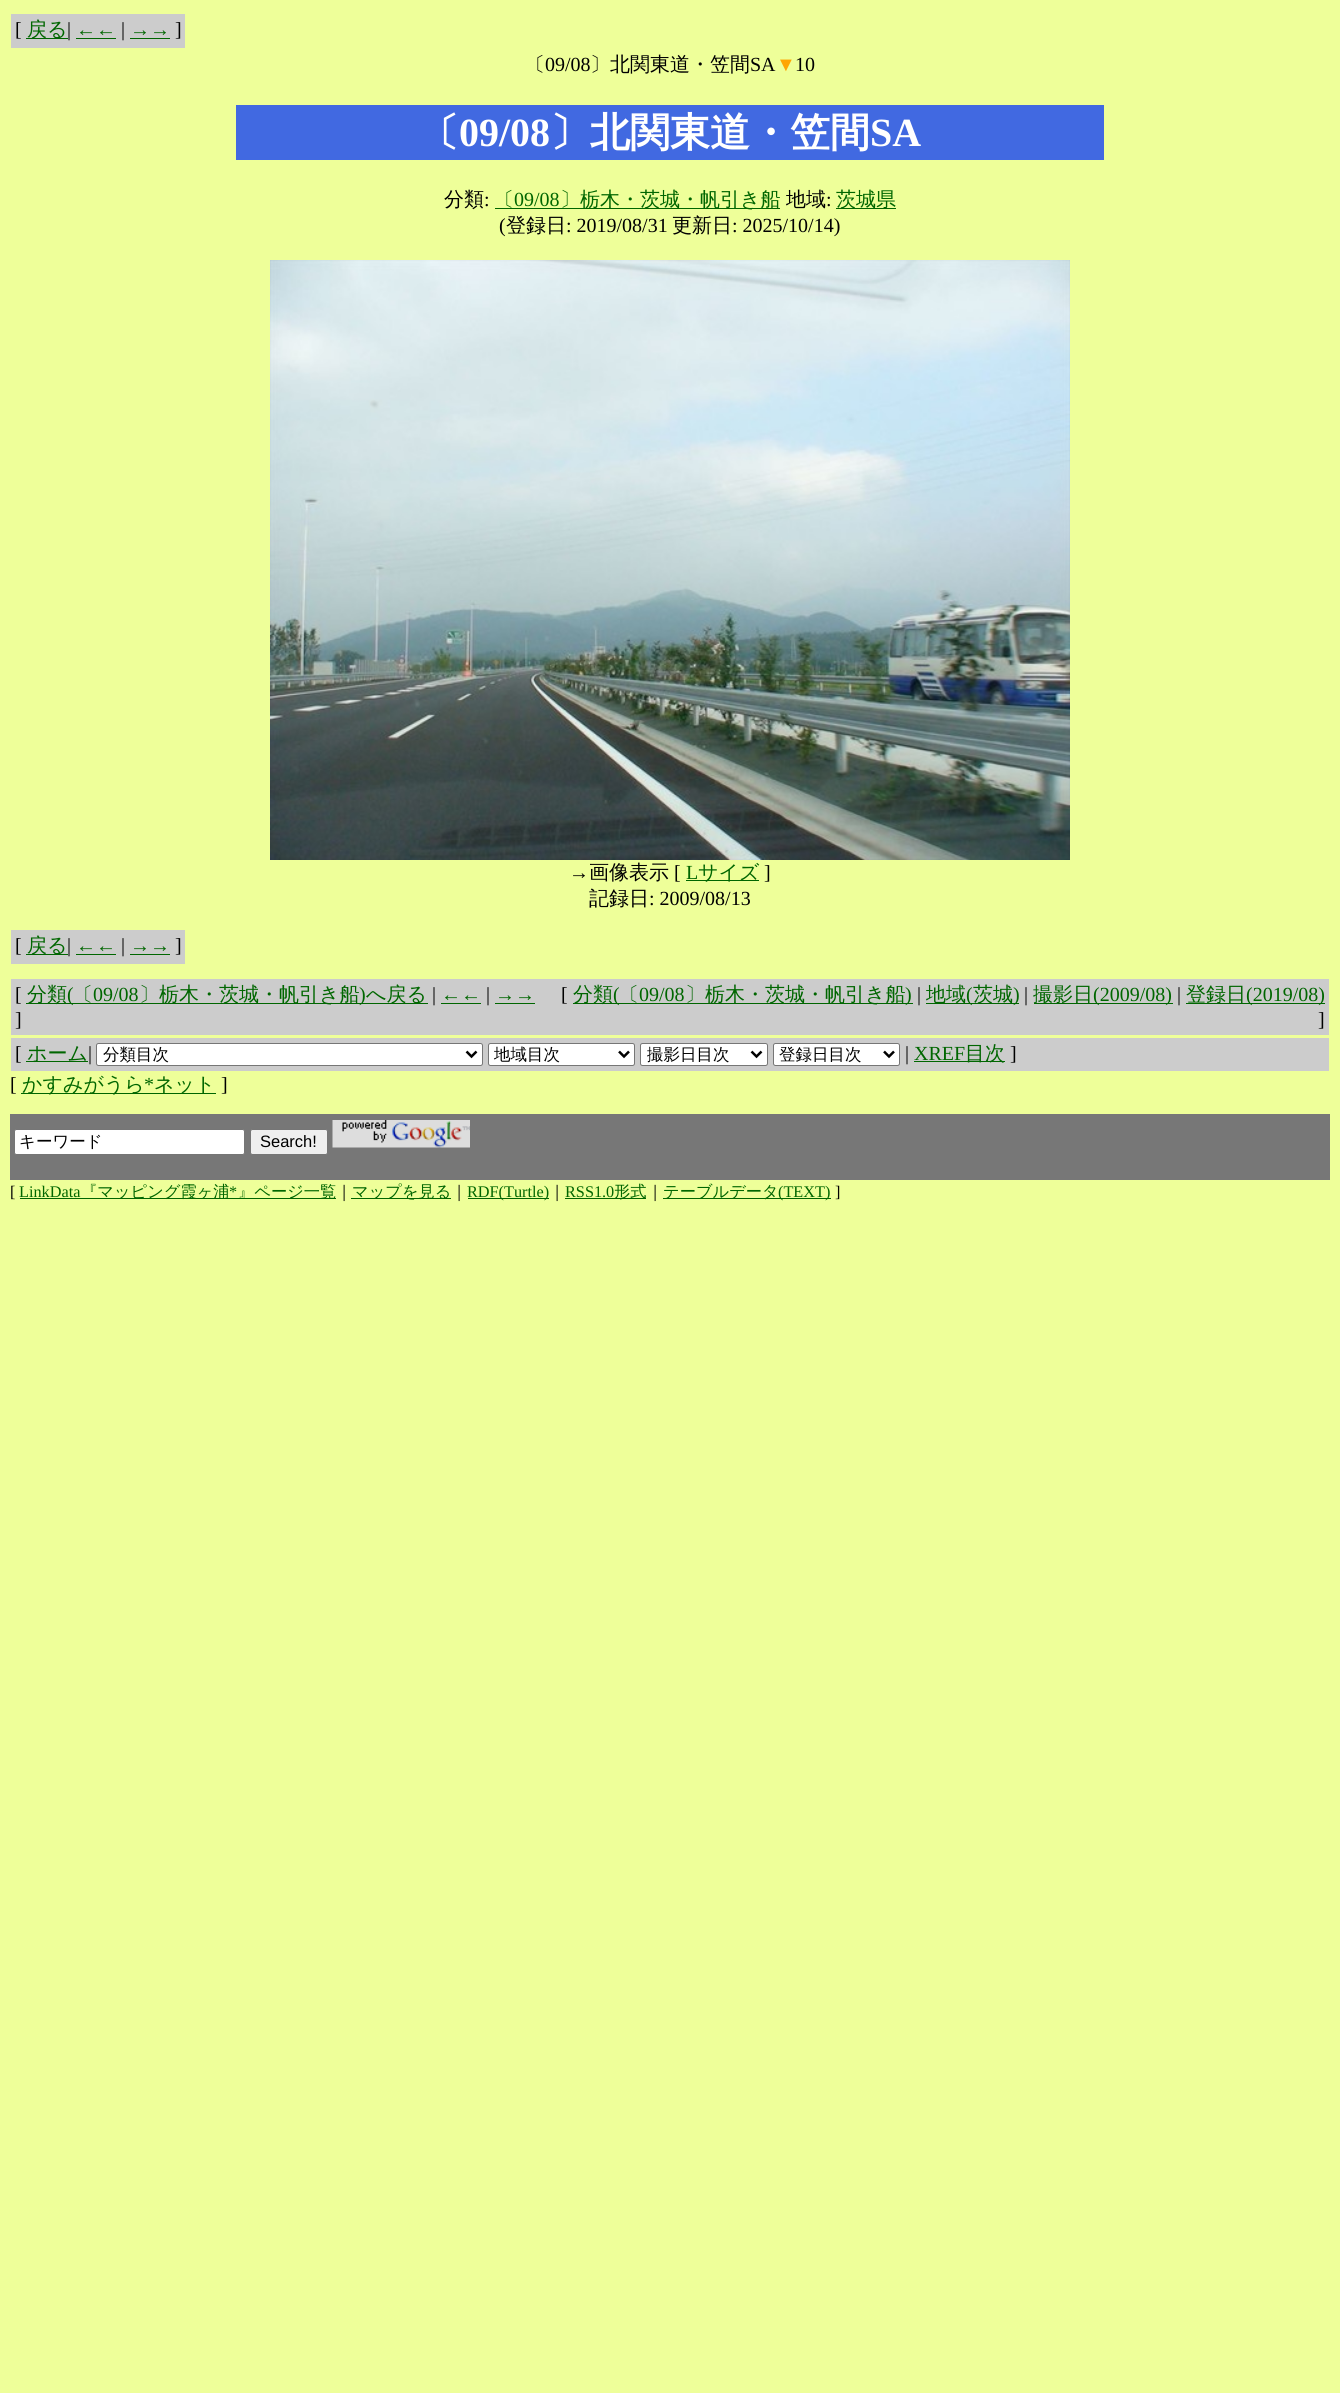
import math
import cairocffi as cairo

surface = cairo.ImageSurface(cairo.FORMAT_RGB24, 1340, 2393)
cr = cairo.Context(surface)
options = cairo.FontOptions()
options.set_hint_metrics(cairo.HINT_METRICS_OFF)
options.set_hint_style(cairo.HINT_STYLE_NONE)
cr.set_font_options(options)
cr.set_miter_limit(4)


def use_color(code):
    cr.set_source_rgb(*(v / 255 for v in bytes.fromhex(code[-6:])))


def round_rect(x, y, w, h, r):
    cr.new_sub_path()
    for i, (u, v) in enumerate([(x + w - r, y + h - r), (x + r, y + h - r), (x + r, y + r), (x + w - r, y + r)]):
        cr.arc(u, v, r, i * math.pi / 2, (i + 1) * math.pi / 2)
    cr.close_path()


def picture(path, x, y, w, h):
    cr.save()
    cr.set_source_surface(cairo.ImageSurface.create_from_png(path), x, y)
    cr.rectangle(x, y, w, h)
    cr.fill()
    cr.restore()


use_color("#eeff99")
cr.paint()
use_color("#cccccc")
cr.rectangle(11, 14, 174, 34)
cr.fill()
cr.select_font_face("Liberation Serif")
cr.set_font_size(20)
use_color("#000000")
cr.move_to(15, 36)
cr.show_text("[")
use_color("#006600")
cr.rectangle(26, 38, 42, 1)
cr.fill()
cr.select_font_face("WenQuanYi Zen Hei Medium")
cr.move_to(27, 36)
cr.show_text("戻る")
cr.select_font_face("Liberation Serif")
use_color("#000000")
cr.move_to(67, 36)
cr.show_text("|")
use_color("#006600")
cr.move_to(76, 36)
cr.show_text("←←")
cr.rectangle(76, 38, 40, 1)
cr.fill()
use_color("#000000")
cr.move_to(121, 36)
cr.show_text("|")
use_color("#006600")
cr.move_to(130, 36)
cr.show_text("→→")
cr.rectangle(130, 38, 40, 1)
cr.fill()
use_color("#000000")
cr.move_to(175, 36)
cr.show_text("]")
cr.select_font_face("WenQuanYi Zen Hei Medium")
cr.move_to(525, 71)
cr.show_text("〔")
cr.select_font_face("Liberation Serif")
cr.move_to(545, 71)
cr.show_text("09/08")
cr.select_font_face("WenQuanYi Zen Hei Medium")
cr.move_to(590, 71)
cr.show_text("〕北関東道・笠間")
cr.select_font_face("Liberation Serif")
cr.move_to(750, 71)
cr.show_text("SA")
use_color("#ffa500")
cr.move_to(776, 71)
cr.show_text("▼")
use_color("#000000")
cr.move_to(795, 71)
cr.show_text("10")
use_color("#4169e1")
cr.rectangle(236, 105, 868, 55)
cr.fill()
cr.select_font_face("WenQuanYi Zen Hei", cairo.FONT_SLANT_NORMAL, cairo.FONT_WEIGHT_BOLD)
cr.set_font_size(40)
use_color("#ffffff")
cr.move_to(419, 146)
cr.show_text("〔")
cr.select_font_face("Liberation Serif", cairo.FONT_SLANT_NORMAL, cairo.FONT_WEIGHT_BOLD)
cr.move_to(459, 146)
cr.show_text("09/08")
cr.select_font_face("WenQuanYi Zen Hei", cairo.FONT_SLANT_NORMAL, cairo.FONT_WEIGHT_BOLD)
cr.move_to(550, 146)
cr.show_text("〕北関東道・笠間")
cr.select_font_face("Liberation Serif", cairo.FONT_SLANT_NORMAL, cairo.FONT_WEIGHT_BOLD)
cr.move_to(870, 146)
cr.show_text("SA")
cr.select_font_face("WenQuanYi Zen Hei Medium")
cr.set_font_size(20)
use_color("#000000")
cr.move_to(444, 206)
cr.show_text("分類")
cr.select_font_face("Liberation Serif")
cr.move_to(484, 206)
cr.show_text(":")
cr.select_font_face("WenQuanYi Zen Hei Medium")
use_color("#006600")
cr.move_to(494, 206)
cr.show_text("〔")
cr.select_font_face("Liberation Serif")
cr.move_to(514, 206)
cr.show_text("09/08")
cr.rectangle(495, 208, 285, 1)
cr.fill()
cr.select_font_face("WenQuanYi Zen Hei Medium")
cr.move_to(560, 206)
cr.show_text("〕栃木・茨城・帆引き船")
use_color("#000000")
cr.move_to(786, 206)
cr.show_text("地域")
cr.select_font_face("Liberation Serif")
cr.move_to(826, 206)
cr.show_text(":")
use_color("#006600")
cr.rectangle(836, 208, 60, 1)
cr.fill()
cr.select_font_face("WenQuanYi Zen Hei Medium")
cr.move_to(836, 206)
cr.show_text("茨城県")
cr.select_font_face("Liberation Serif")
use_color("#000000")
cr.move_to(499, 232)
cr.show_text("(")
cr.select_font_face("WenQuanYi Zen Hei Medium")
cr.move_to(506, 232)
cr.show_text("登録日")
cr.select_font_face("Liberation Serif")
cr.move_to(566, 232)
cr.show_text(": 2019/08/31")
cr.select_font_face("WenQuanYi Zen Hei Medium")
cr.move_to(672, 232)
cr.show_text("更新日")
cr.select_font_face("Liberation Serif")
cr.move_to(732, 232)
cr.show_text(": 2025/10/14)")
picture("img1.png", 270, 260, 800, 600)
cr.move_to(569, 879)
cr.show_text("→")
cr.select_font_face("WenQuanYi Zen Hei Medium")
cr.move_to(589, 879)
cr.show_text("画像表示")
cr.select_font_face("Liberation Serif")
cr.move_to(674, 879)
cr.show_text("[")
use_color("#006600")
cr.move_to(686, 879)
cr.show_text("L")
cr.rectangle(686, 880, 73, 1)
cr.fill()
cr.select_font_face("WenQuanYi Zen Hei Medium")
cr.move_to(698, 879)
cr.show_text("サイズ")
cr.select_font_face("Liberation Serif")
use_color("#000000")
cr.move_to(764, 879)
cr.show_text("]")
cr.select_font_face("WenQuanYi Zen Hei Medium")
cr.move_to(589, 905)
cr.show_text("記録日")
cr.select_font_face("Liberation Serif")
cr.move_to(649, 905)
cr.show_text(": 2009/08/13")
use_color("#cccccc")
cr.rectangle(11, 930, 174, 34)
cr.fill()
use_color("#000000")
cr.move_to(15, 952)
cr.show_text("[")
use_color("#006600")
cr.rectangle(26, 954, 42, 1)
cr.fill()
cr.select_font_face("WenQuanYi Zen Hei Medium")
cr.move_to(27, 952)
cr.show_text("戻る")
cr.select_font_face("Liberation Serif")
use_color("#000000")
cr.move_to(67, 952)
cr.show_text("|")
use_color("#006600")
cr.move_to(76, 952)
cr.show_text("←←")
cr.rectangle(76, 954, 40, 1)
cr.fill()
use_color("#000000")
cr.move_to(121, 952)
cr.show_text("|")
use_color("#006600")
cr.move_to(130, 952)
cr.show_text("→→")
cr.rectangle(130, 954, 40, 1)
cr.fill()
use_color("#000000")
cr.move_to(175, 952)
cr.show_text("]")
use_color("#cccccc")
cr.rectangle(11, 979, 1318, 56)
cr.fill()
use_color("#000000")
cr.move_to(15, 1001)
cr.show_text("[")
use_color("#006600")
cr.rectangle(26, 1003, 402, 1)
cr.fill()
cr.select_font_face("WenQuanYi Zen Hei Medium")
cr.move_to(27, 1001)
cr.show_text("分類")
cr.select_font_face("Liberation Serif")
cr.move_to(67, 1001)
cr.show_text("(")
cr.select_font_face("WenQuanYi Zen Hei Medium")
cr.move_to(73, 1001)
cr.show_text("〔")
cr.select_font_face("Liberation Serif")
cr.move_to(93, 1001)
cr.show_text("09/08")
cr.select_font_face("WenQuanYi Zen Hei Medium")
cr.move_to(139, 1001)
cr.show_text("〕栃木・茨城・帆引き船")
cr.select_font_face("Liberation Serif")
cr.move_to(359, 1001)
cr.show_text(")")
cr.select_font_face("WenQuanYi Zen Hei Medium")
cr.move_to(366, 1001)
cr.show_text("へ戻る")
cr.select_font_face("Liberation Serif")
use_color("#000000")
cr.move_to(432, 1001)
cr.show_text("|")
use_color("#006600")
cr.move_to(441, 1001)
cr.show_text("←←")
cr.rectangle(441, 1003, 40, 1)
cr.fill()
use_color("#000000")
cr.move_to(486, 1001)
cr.show_text("|")
use_color("#006600")
cr.move_to(495, 1001)
cr.show_text("→→")
cr.rectangle(495, 1003, 40, 1)
cr.fill()
use_color("#000000")
cr.move_to(15, 1026)
cr.show_text("]")
cr.move_to(561, 1001)
cr.show_text("[")
use_color("#006600")
cr.rectangle(573, 1003, 340, 1)
cr.fill()
cr.select_font_face("WenQuanYi Zen Hei Medium")
cr.move_to(573, 1001)
cr.show_text("分類")
cr.select_font_face("Liberation Serif")
cr.move_to(613, 1001)
cr.show_text("(")
cr.select_font_face("WenQuanYi Zen Hei Medium")
cr.move_to(619, 1001)
cr.show_text("〔")
cr.select_font_face("Liberation Serif")
cr.move_to(639, 1001)
cr.show_text("09/08")
cr.select_font_face("WenQuanYi Zen Hei Medium")
cr.move_to(685, 1001)
cr.show_text("〕栃木・茨城・帆引き船")
cr.select_font_face("Liberation Serif")
cr.move_to(905, 1001)
cr.show_text(")")
use_color("#000000")
cr.move_to(917, 1001)
cr.show_text("|")
use_color("#006600")
cr.rectangle(926, 1003, 93, 1)
cr.fill()
cr.select_font_face("WenQuanYi Zen Hei Medium")
cr.move_to(926, 1001)
cr.show_text("地域")
cr.select_font_face("Liberation Serif")
cr.move_to(966, 1001)
cr.show_text("(")
cr.select_font_face("WenQuanYi Zen Hei Medium")
cr.move_to(973, 1001)
cr.show_text("茨城")
cr.select_font_face("Liberation Serif")
cr.move_to(1013, 1001)
cr.show_text(")")
use_color("#000000")
cr.move_to(1024, 1001)
cr.show_text("|")
use_color("#006600")
cr.rectangle(1034, 1003, 139, 1)
cr.fill()
cr.select_font_face("WenQuanYi Zen Hei Medium")
cr.move_to(1033, 1001)
cr.show_text("撮影日")
cr.select_font_face("Liberation Serif")
cr.move_to(1093, 1001)
cr.show_text("(2009/08)")
use_color("#000000")
cr.move_to(1177, 1001)
cr.show_text("|")
use_color("#006600")
cr.rectangle(1186, 1003, 139, 1)
cr.fill()
cr.select_font_face("WenQuanYi Zen Hei Medium")
cr.move_to(1186, 1001)
cr.show_text("登録日")
cr.select_font_face("Liberation Serif")
cr.move_to(1246, 1001)
cr.show_text("(2019/08)")
use_color("#000000")
cr.move_to(1318, 1026)
cr.show_text("]")
use_color("#cccccc")
cr.rectangle(11, 1038, 1318, 33)
cr.fill()
use_color("#000000")
cr.move_to(15, 1060)
cr.show_text("[")
use_color("#006600")
cr.rectangle(26, 1061, 62, 1)
cr.fill()
cr.select_font_face("WenQuanYi Zen Hei Medium")
cr.move_to(27, 1060)
cr.show_text("ホーム")
cr.select_font_face("Liberation Serif")
use_color("#000000")
cr.move_to(88, 1060)
cr.show_text("|")
use_color("#ffffff")
round_rect(96.5, 1043.5, 386, 22, 2)
cr.fill_preserve()
use_color("#767676")
cr.set_line_width(1)
cr.stroke()
cr.new_path()
cr.move_to(466.5, 1051.5)
cr.line_to(471.5, 1056.5)
cr.line_to(476.5, 1051.5)
use_color("#000000")
cr.set_line_width(2.5)
cr.stroke()
cr.select_font_face("WenQuanYi Zen Hei Medium")
cr.set_font_size(16.5)
cr.move_to(103, 1060)
cr.show_text("分類目次")
use_color("#ffffff")
round_rect(488.5, 1043.5, 146, 22, 2)
cr.fill_preserve()
use_color("#767676")
cr.set_line_width(1)
cr.stroke()
cr.new_path()
cr.move_to(619, 1051.5)
cr.line_to(624, 1056.5)
cr.line_to(629, 1051.5)
use_color("#000000")
cr.set_line_width(2.5)
cr.stroke()
cr.move_to(494, 1060)
cr.show_text("地域目次")
use_color("#ffffff")
round_rect(640.5, 1043.5, 127, 22, 2)
cr.fill_preserve()
use_color("#767676")
cr.set_line_width(1)
cr.stroke()
cr.new_path()
cr.move_to(751.5, 1051.5)
cr.line_to(756.5, 1056.5)
cr.line_to(761.5, 1051.5)
use_color("#000000")
cr.set_line_width(2.5)
cr.stroke()
cr.move_to(647, 1060)
cr.show_text("撮影日目次")
use_color("#ffffff")
round_rect(773.5, 1043.5, 126, 22, 2)
cr.fill_preserve()
use_color("#767676")
cr.set_line_width(1)
cr.stroke()
cr.new_path()
cr.move_to(884, 1051.5)
cr.line_to(889, 1056.5)
cr.line_to(894, 1051.5)
use_color("#000000")
cr.set_line_width(2.5)
cr.stroke()
cr.move_to(779, 1060)
cr.show_text("登録日目次")
cr.select_font_face("Liberation Serif")
cr.set_font_size(20)
cr.move_to(905, 1060)
cr.show_text("|")
use_color("#006600")
cr.move_to(914, 1060)
cr.show_text("XREF")
cr.rectangle(914, 1061, 91, 1)
cr.fill()
cr.select_font_face("WenQuanYi Zen Hei Medium")
cr.move_to(965, 1060)
cr.show_text("目次")
cr.select_font_face("Liberation Serif")
use_color("#000000")
cr.move_to(1010, 1060)
cr.show_text("]")
cr.move_to(10, 1091)
cr.show_text("[")
use_color("#006600")
cr.rectangle(21, 1093, 195, 1)
cr.fill()
cr.select_font_face("WenQuanYi Zen Hei Medium")
cr.move_to(22, 1091)
cr.show_text("かすみがうら")
cr.select_font_face("Liberation Serif")
cr.move_to(144, 1091)
cr.show_text("*")
cr.select_font_face("WenQuanYi Zen Hei Medium")
cr.move_to(154, 1091)
cr.show_text("ネット")
cr.select_font_face("Liberation Serif")
use_color("#000000")
cr.move_to(221, 1091)
cr.show_text("]")
use_color("#777777")
cr.rectangle(10, 1114, 1320, 66)
cr.fill()
use_color("#ffffff")
round_rect(14.5, 1129.5, 230, 25, 2)
cr.fill_preserve()
use_color("#767676")
cr.set_line_width(1)
cr.stroke()
cr.select_font_face("WenQuanYi Zen Hei Medium")
cr.set_font_size(16.5)
use_color("#000000")
cr.move_to(19, 1147)
cr.show_text("キーワード")
use_color("#efefef")
round_rect(250.5, 1129.5, 77, 25, 2)
cr.fill_preserve()
use_color("#767676")
cr.stroke()
cr.select_font_face("Liberation Sans")
use_color("#000000")
cr.move_to(260, 1147)
cr.show_text("Search!")
picture("img2.png", 332, 1120, 138, 28)
cr.select_font_face("Liberation Serif")
cr.set_font_size(16.25)
cr.move_to(10, 1197)
cr.show_text("[")
use_color("#006600")
cr.move_to(19, 1197)
cr.show_text("LinkData")
cr.rectangle(20, 1198, 316, 1)
cr.fill()
cr.select_font_face("WenQuanYi Zen Hei Medium")
cr.move_to(81, 1197)
cr.show_text("『マッピング霞ヶ浦")
cr.select_font_face("Liberation Serif")
cr.move_to(229, 1197)
cr.show_text("*")
cr.select_font_face("WenQuanYi Zen Hei Medium")
cr.move_to(238, 1197)
cr.show_text("』ページ一覧")
use_color("#000000")
cr.move_to(336, 1197)
cr.show_text("｜")
use_color("#006600")
cr.rectangle(351, 1198, 100, 1)
cr.fill()
cr.move_to(352, 1197)
cr.show_text("マップを見る")
use_color("#000000")
cr.move_to(451, 1197)
cr.show_text("｜")
use_color("#006600")
cr.rectangle(468, 1198, 81, 1)
cr.fill()
cr.select_font_face("Liberation Serif")
cr.move_to(467, 1197)
cr.show_text("RDF(Turtle)")
cr.select_font_face("WenQuanYi Zen Hei Medium")
use_color("#000000")
cr.move_to(549, 1197)
cr.show_text("｜")
cr.select_font_face("Liberation Serif")
use_color("#006600")
cr.move_to(565, 1197)
cr.show_text("RSS1.0")
cr.rectangle(565, 1198, 81, 1)
cr.fill()
cr.select_font_face("WenQuanYi Zen Hei Medium")
cr.move_to(614, 1197)
cr.show_text("形式")
use_color("#000000")
cr.move_to(647, 1197)
cr.show_text("｜")
use_color("#006600")
cr.rectangle(663, 1198, 168, 1)
cr.fill()
cr.move_to(663, 1197)
cr.show_text("テーブルデータ")
cr.select_font_face("Liberation Serif")
cr.move_to(778, 1197)
cr.show_text("(TEXT)")
use_color("#000000")
cr.move_to(835, 1197)
cr.show_text("]")
surface.write_to_png("result.png")
